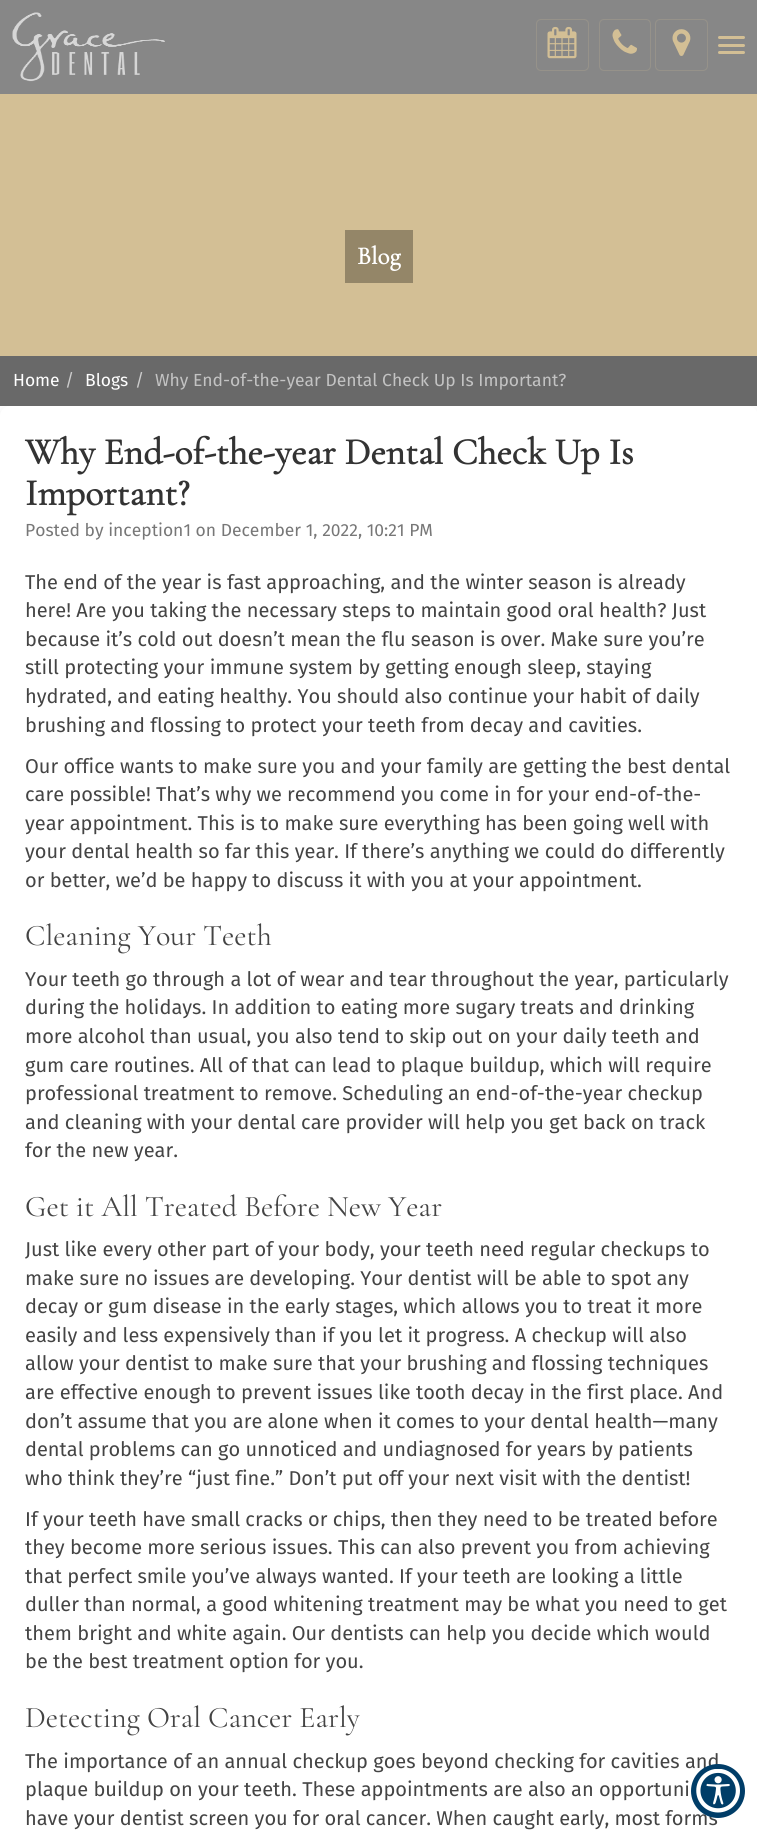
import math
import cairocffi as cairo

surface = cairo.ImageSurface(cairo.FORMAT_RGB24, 757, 1830)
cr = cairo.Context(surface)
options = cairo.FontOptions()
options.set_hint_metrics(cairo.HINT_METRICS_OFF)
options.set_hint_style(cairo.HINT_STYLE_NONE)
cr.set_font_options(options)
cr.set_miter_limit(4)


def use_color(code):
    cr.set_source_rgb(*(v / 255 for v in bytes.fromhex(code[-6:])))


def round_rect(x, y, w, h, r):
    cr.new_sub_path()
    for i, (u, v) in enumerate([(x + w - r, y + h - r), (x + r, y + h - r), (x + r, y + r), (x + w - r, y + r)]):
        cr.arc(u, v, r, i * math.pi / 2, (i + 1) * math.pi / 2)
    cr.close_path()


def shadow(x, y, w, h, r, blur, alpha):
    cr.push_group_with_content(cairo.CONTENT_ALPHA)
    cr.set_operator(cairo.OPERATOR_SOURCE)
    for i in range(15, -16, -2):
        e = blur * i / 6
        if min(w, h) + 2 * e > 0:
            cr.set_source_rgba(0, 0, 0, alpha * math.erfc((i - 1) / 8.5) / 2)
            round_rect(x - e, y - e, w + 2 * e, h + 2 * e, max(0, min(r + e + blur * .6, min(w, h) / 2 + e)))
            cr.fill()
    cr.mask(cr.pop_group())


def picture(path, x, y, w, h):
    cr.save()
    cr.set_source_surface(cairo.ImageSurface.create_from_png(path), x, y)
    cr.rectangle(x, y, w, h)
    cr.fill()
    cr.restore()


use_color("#ffffff")
cr.paint()
use_color("#878787")
cr.rectangle(0, 0, 757, 94)
cr.fill()
picture("img1.png", 12, 12, 153, 70)
round_rect(536.5, 19.5, 52, 51, 4.5)
use_color("#96928a")
cr.set_line_width(1)
cr.stroke()
picture("img2.png", 547, 26, 30, 33)
round_rect(599.5, 19.5, 51, 51, 4.5)
cr.stroke()
picture("img3.png", 612, 29, 25, 25)
round_rect(655.5, 19.5, 52, 51, 4.5)
cr.stroke()
picture("img4.png", 672, 29, 19, 27)
use_color("#d3bf95")
round_rect(718, 36, 27, 3, 1.5)
cr.fill()
round_rect(718, 44, 27, 3, 1.5)
cr.fill()
round_rect(718, 51, 27, 3, 1.5)
cr.fill()
cr.rectangle(0, 94, 757, 262)
cr.fill()
use_color("#948668")
cr.rectangle(345, 230, 68, 53)
cr.fill()
cr.select_font_face("Cormorant Garamond", cairo.FONT_SLANT_NORMAL, cairo.FONT_WEIGHT_BOLD)
cr.set_font_size(25)
use_color("#ffffff")
cr.move_to(357, 264)
cr.show_text("Blog")
use_color("#000000")
shadow(0, 411, 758, 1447, 10, 6, 0.1)
use_color("#696969")
cr.rectangle(0, 356, 757, 50)
cr.fill()
cr.select_font_face("Fira Sans")
cr.set_font_size(17.5)
use_color("#ffffff")
cr.move_to(13, 386)
cr.show_text("Home")
use_color("#cccccc")
cr.move_to(65, 386)
cr.show_text("/")
use_color("#ffffff")
cr.move_to(85, 386)
cr.show_text("Blogs")
use_color("#cccccc")
cr.move_to(135, 386)
cr.show_text("/")
use_color("#c3c3c3")
cr.move_to(155, 386)
cr.show_text("Why End-of-the-year Dental Check Up Is Important?")
use_color("#ffffff")
round_rect(0, 406, 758, 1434, 10)
cr.fill()
cr.select_font_face("Cormorant Garamond", cairo.FONT_SLANT_NORMAL, cairo.FONT_WEIGHT_BOLD)
cr.set_font_size(37.5)
use_color("#333333")
cr.move_to(25, 464)
cr.show_text("Why End-of-the-year Dental Check Up Is")
cr.move_to(25, 505)
cr.show_text("Important?")
cr.select_font_face("Fira Sans")
cr.set_font_size(17.5)
use_color("#777777")
cr.move_to(25, 536)
cr.show_text("Posted by inception1 on December 1, 2022, 10:21 PM")
cr.set_font_size(20)
use_color("#444444")
cr.move_to(25, 589)
cr.show_text("The end of the year is fast approaching, and the winter season is already")
cr.move_to(25, 617)
cr.show_text("here! Are you taking the necessary steps to maintain good oral health? Just")
cr.move_to(25, 646)
cr.show_text("because it’s cold out doesn’t mean the flu season is over. Make sure you’re")
cr.move_to(25, 674)
cr.show_text("still protecting your immune system by getting enough sleep, staying")
cr.move_to(25, 703)
cr.show_text("hydrated, and eating healthy. You should also continue your habit of daily")
cr.move_to(25, 732)
cr.show_text("brushing and flossing to protect your teeth from decay and cavities.")
cr.move_to(25, 773)
cr.show_text("Our office wants to make sure you and your family are getting the best dental")
cr.move_to(25, 801)
cr.show_text("care possible! That’s why we recommend you come in for your end-of-the-")
cr.move_to(25, 830)
cr.show_text("year appointment. This is to make sure everything has been going well with")
cr.move_to(25, 858)
cr.show_text("your dental health so far this year. If there’s anything we could do differently")
cr.move_to(25, 887)
cr.show_text("or better, we’d be happy to discuss it with you at your appointment.")
cr.select_font_face("Cormorant Garamond Light")
cr.set_font_size(30)
cr.move_to(25, 945)
cr.show_text("Cleaning Your Teeth")
cr.select_font_face("Fira Sans")
cr.set_font_size(20)
cr.move_to(25, 986)
cr.show_text("Your teeth go through a lot of wear and tear throughout the year, particularly")
cr.move_to(25, 1014)
cr.show_text("during the holidays. In addition to eating more sugary treats and drinking")
cr.move_to(25, 1043)
cr.show_text("more alcohol than usual, you also tend to skip out on your daily teeth and")
cr.move_to(25, 1072)
cr.show_text("gum care routines. All of that can lead to plaque buildup, which will require")
cr.move_to(25, 1100)
cr.show_text("professional treatment to remove. Scheduling an end-of-the-year checkup")
cr.move_to(25, 1129)
cr.show_text("and cleaning with your dental care provider will help you get back on track")
cr.move_to(25, 1157)
cr.show_text("for the new year.")
cr.select_font_face("Cormorant Garamond Light")
cr.set_font_size(30)
cr.move_to(25, 1216)
cr.show_text("Get it All Treated Before New Year")
cr.select_font_face("Fira Sans")
cr.set_font_size(20)
cr.move_to(25, 1256)
cr.show_text("Just like every other part of your body, your teeth need regular checkups to")
cr.move_to(25, 1285)
cr.show_text("make sure no issues are developing. Your dentist will be able to spot any")
cr.move_to(25, 1313)
cr.show_text("decay or gum disease in the early stages, which allows you to treat it more")
cr.move_to(25, 1342)
cr.show_text("easily and less expensively than if you let it progress. A checkup will also")
cr.move_to(25, 1370)
cr.show_text("allow your dentist to make sure that your brushing and flossing techniques")
cr.move_to(25, 1399)
cr.show_text("are effective enough to prevent issues like tooth decay in the first place. And")
cr.move_to(25, 1428)
cr.show_text("don’t assume that you are alone when it comes to your dental health—many")
cr.move_to(25, 1456)
cr.show_text("dental problems can go unnoticed and undiagnosed for years by patients")
cr.move_to(25, 1485)
cr.show_text("who think they’re “just fine.” Don’t put off your next visit with the dentist!")
cr.move_to(25, 1526)
cr.show_text("If your teeth have small cracks or chips, then they need to be treated before")
cr.move_to(25, 1554)
cr.show_text("they become more serious issues. This can also prevent you from achieving")
cr.move_to(25, 1583)
cr.show_text("that perfect smile you’ve always wanted. If your teeth are looking a little")
cr.move_to(25, 1611)
cr.show_text("duller than normal, a good whitening treatment may be what you need to get")
cr.move_to(25, 1640)
cr.show_text("them bright and white again. Our dentists can help you decide which would")
cr.move_to(25, 1668)
cr.show_text("be the best treatment option for you.")
cr.select_font_face("Cormorant Garamond Light")
cr.set_font_size(30)
cr.move_to(25, 1727)
cr.show_text("Detecting Oral Cancer Early")
cr.select_font_face("Fira Sans")
cr.set_font_size(20)
cr.move_to(25, 1768)
cr.show_text("The importance of an annual checkup goes beyond checking for cavities and")
cr.move_to(25, 1796)
cr.show_text("plaque buildup on your teeth. These appointments are also an opportuni")
cr.move_to(25, 1825)
cr.show_text("have your dentist screen you for oral cancer. When caught early, most forms")
use_color("#003d68")
cr.new_path()
cr.arc(718, 1791, 27, 0, 2 * math.pi)
cr.fill()
picture("img5.png", 696, 1769, 44, 44)
surface.write_to_png("result.png")
